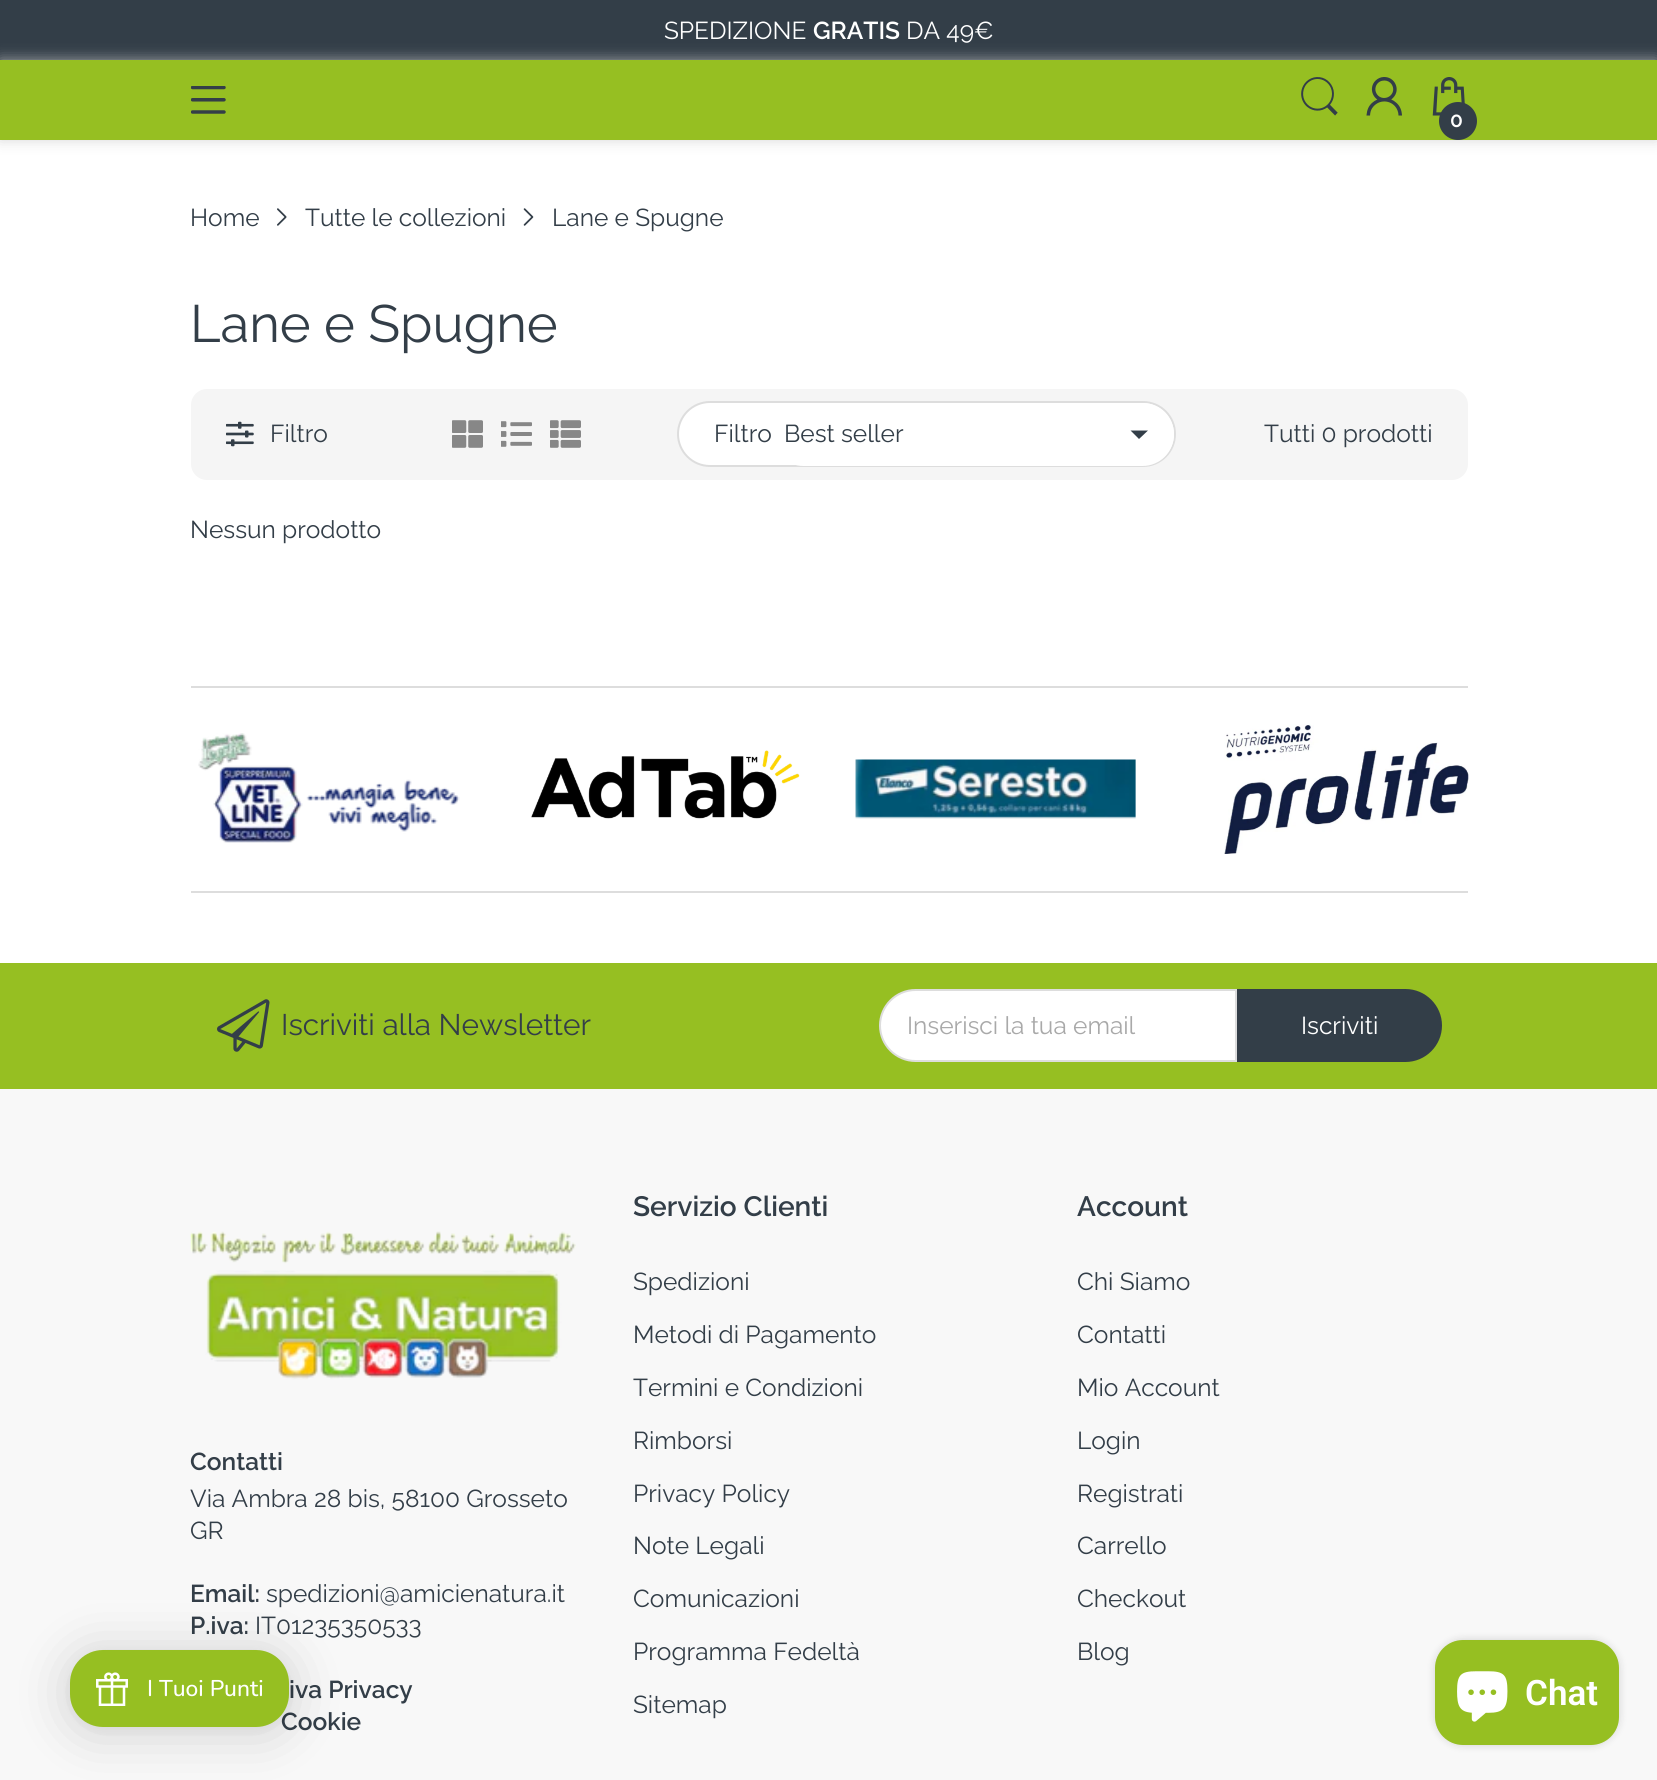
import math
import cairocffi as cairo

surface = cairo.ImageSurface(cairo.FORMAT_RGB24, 1657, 1780)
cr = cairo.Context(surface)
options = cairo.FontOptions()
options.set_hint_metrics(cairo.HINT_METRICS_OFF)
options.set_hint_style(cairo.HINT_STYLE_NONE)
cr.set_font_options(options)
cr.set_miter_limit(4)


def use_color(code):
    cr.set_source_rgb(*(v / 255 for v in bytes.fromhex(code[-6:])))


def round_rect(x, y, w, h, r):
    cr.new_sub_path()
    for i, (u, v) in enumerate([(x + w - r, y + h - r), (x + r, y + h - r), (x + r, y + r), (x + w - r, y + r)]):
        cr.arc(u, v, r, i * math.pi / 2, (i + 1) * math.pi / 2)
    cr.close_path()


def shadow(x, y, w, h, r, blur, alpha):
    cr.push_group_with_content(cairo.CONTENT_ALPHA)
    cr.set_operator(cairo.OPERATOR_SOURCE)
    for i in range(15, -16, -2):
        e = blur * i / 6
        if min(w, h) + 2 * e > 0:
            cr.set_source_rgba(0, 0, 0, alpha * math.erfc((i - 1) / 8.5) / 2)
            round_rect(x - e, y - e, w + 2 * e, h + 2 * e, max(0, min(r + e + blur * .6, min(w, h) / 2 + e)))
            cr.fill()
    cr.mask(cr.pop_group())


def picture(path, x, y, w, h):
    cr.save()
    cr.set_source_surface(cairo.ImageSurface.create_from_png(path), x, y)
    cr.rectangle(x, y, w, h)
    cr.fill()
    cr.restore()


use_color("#ffffff")
cr.paint()
use_color("#333e48")
cr.rectangle(0, 0, 1657, 60)
cr.fill()
cr.select_font_face("Raleway")
cr.set_font_size(24.5)
use_color("#ffffff")
cr.move_to(664, 39)
cr.show_text("SPEDIZIONE")
cr.select_font_face("Raleway SemiBold")
cr.move_to(813, 39)
cr.show_text("GRATIS")
cr.select_font_face("Raleway")
cr.move_to(906, 39)
cr.show_text("DA 49€")
use_color("#c9c9c9")
shadow(0, 60, 1657, 80, 0, 7, 0.75)
use_color("#96bf22")
cr.rectangle(0, 60, 1657, 80)
cr.fill()
picture("img1.png", 191, 86, 35, 28)
picture("img2.png", 1301, 77, 37, 39)
picture("img3.png", 1366, 77, 36, 39)
picture("img4.png", 1432, 77, 33, 39)
use_color("#333e48")
cr.arc(1458, 121, 19, 0, 2 * math.pi)
cr.fill()
cr.select_font_face("Raleway SemiBold")
cr.set_font_size(21)
use_color("#ffffff")
cr.move_to(1450, 127)
cr.show_text("0")
cr.select_font_face("Raleway")
cr.set_font_size(24.5)
use_color("#333e48")
cr.move_to(190, 226)
cr.show_text("Home")
picture("img5.png", 277, 208, 10, 18)
cr.move_to(305, 226)
cr.show_text("Tutte le collezioni")
picture("img6.png", 523, 208, 11, 18)
cr.move_to(552, 226)
cr.show_text("Lane e Spugne")
cr.set_font_size(52.5)
cr.move_to(190, 342)
cr.show_text("Lane e Spugne")
use_color("#f5f5f5")
round_rect(191, 389, 1277, 91, 16)
cr.fill()
picture("img7.png", 226, 421, 28, 26)
cr.set_font_size(24.5)
use_color("#333e48")
cr.move_to(270, 442)
cr.show_text("Filtro")
picture("img8.png", 452, 420, 31, 28)
picture("img9.png", 501, 421, 31, 26)
picture("img10.png", 550, 420, 31, 28)
use_color("#ffffff")
round_rect(678, 402, 497, 64, 32)
cr.fill_preserve()
use_color("#dddddd")
cr.stroke()
use_color("#333e48")
cr.move_to(714, 442)
cr.show_text("Filtro")
use_color("#ffffff")
round_rect(772, 403, 402, 63, 31.5)
cr.fill()
use_color("#333e48")
cr.move_to(784, 442)
cr.show_text("Best seller")
cr.set_fill_rule(cairo.FILL_RULE_EVEN_ODD)
cr.new_path()
cr.move_to(1130.5, 430.5)
cr.line_to(1139, 439)
cr.line_to(1148, 430.5)
cr.close_path()
cr.fill()
cr.move_to(1264, 442)
cr.show_text("Tutti 0 prodotti")
cr.move_to(190, 538)
cr.show_text("Nessun prodotto")
use_color("#dddddd")
cr.rectangle(191, 686, 1277, 2)
cr.fill()
cr.rectangle(191, 891, 1277, 2)
cr.fill()
picture("img11.png", 198, 733, 262, 110)
picture("img12.png", 531, 750, 269, 69)
picture("img13.png", 855, 759, 281, 60)
picture("img14.png", 1224, 724, 245, 130)
use_color("#96bf22")
cr.rectangle(0, 963, 1657, 126)
cr.fill()
picture("img15.png", 217, 999, 53, 53)
cr.set_font_size(29.75)
use_color("#333e48")
cr.move_to(281, 1035)
cr.show_text("Iscriviti alla Newsletter")
use_color("#ffffff")
cr.new_path()
cr.move_to(915.5, 990)
cr.line_to(1236, 990)
cr.line_to(1236, 1061)
cr.line_to(915.5, 1061)
cr.curve_to(896, 1061, 880, 1045, 880, 1025.5)
cr.curve_to(880, 1006, 896, 990, 915.5, 990)
cr.close_path()
cr.fill_preserve()
use_color("#dddddd")
cr.stroke()
cr.set_font_size(24.5)
use_color("#a9a9a9")
cr.move_to(907, 1034)
cr.show_text("Inserisci la tua email")
use_color("#333e48")
cr.new_path()
cr.move_to(1238, 990)
cr.line_to(1405.5, 990)
cr.curve_to(1425, 990, 1441, 1006, 1441, 1025.5)
cr.curve_to(1441, 1045, 1425, 1061, 1405.5, 1061)
cr.line_to(1238, 1061)
cr.close_path()
cr.fill_preserve()
cr.stroke()
use_color("#ffffff")
cr.move_to(1301, 1034)
cr.show_text("Iscriviti")
use_color("#f8f8f8")
cr.rectangle(0, 1089, 1657, 691)
cr.fill()
picture("img16.png", 190, 1231, 386, 149)
cr.select_font_face("Raleway SemiBold")
use_color("#333e48")
cr.move_to(190, 1470)
cr.show_text("Contatti")
cr.select_font_face("Raleway")
cr.move_to(190, 1507)
cr.show_text("Via Ambra 28 bis, 58100 Grosseto")
cr.move_to(190, 1539)
cr.show_text("GR")
cr.select_font_face("Raleway SemiBold")
cr.move_to(190, 1602)
cr.show_text("Email:")
cr.select_font_face("Raleway")
cr.move_to(266, 1602)
cr.show_text("spedizioni@amicienatura.it")
cr.select_font_face("Raleway SemiBold")
cr.move_to(190, 1634)
cr.show_text("P.iva:")
cr.select_font_face("Raleway")
cr.move_to(255, 1634)
cr.show_text("IT01235350533")
cr.select_font_face("Raleway SemiBold")
cr.move_to(289, 1698)
cr.show_text("iva Privacy")
cr.move_to(281, 1730)
cr.show_text("Cookie")
cr.set_font_size(28)
cr.move_to(633, 1216)
cr.show_text("Servizio Clienti")
cr.select_font_face("Raleway")
cr.set_font_size(24.5)
cr.move_to(633, 1290)
cr.show_text("Spedizioni")
cr.move_to(633, 1343)
cr.show_text("Metodi di Pagamento")
cr.move_to(633, 1396)
cr.show_text("Termini e Condizioni")
cr.move_to(633, 1449)
cr.show_text("Rimborsi")
cr.move_to(633, 1502)
cr.show_text("Privacy Policy")
cr.move_to(633, 1554)
cr.show_text("Note Legali")
cr.move_to(633, 1607)
cr.show_text("Comunicazioni")
cr.move_to(633, 1660)
cr.show_text("Programma Fedeltà")
cr.move_to(633, 1713)
cr.show_text("Sitemap")
cr.select_font_face("Raleway SemiBold")
cr.set_font_size(28)
cr.move_to(1077, 1216)
cr.show_text("Account")
cr.select_font_face("Raleway")
cr.set_font_size(24.5)
cr.move_to(1077, 1290)
cr.show_text("Chi Siamo")
cr.move_to(1077, 1343)
cr.show_text("Contatti")
cr.move_to(1077, 1396)
cr.show_text("Mio Account")
cr.move_to(1077, 1449)
cr.show_text("Login")
cr.move_to(1077, 1502)
cr.show_text("Registrati")
cr.move_to(1077, 1554)
cr.show_text("Carrello")
cr.move_to(1077, 1607)
cr.show_text("Checkout")
cr.move_to(1077, 1660)
cr.show_text("Blog")
use_color("#000000")
shadow(1435, 1640, 184, 105, 28, 4.5, 0.15)
use_color("#96bf22")
round_rect(1435, 1640, 184, 105, 28)
cr.fill()
picture("img17.png", 1457, 1671, 51, 51)
cr.select_font_face("Roboto SemiBold")
cr.set_font_size(35)
use_color("#ffffff")
cr.move_to(1525, 1705)
cr.show_text("Chat")
use_color("#000000")
shadow(70, 1654, 219, 77, 33, 28, 0.16)
shadow(70, 1652, 219, 77, 33, 5, 0.06)
use_color("#96bf22")
round_rect(70, 1650, 219, 77, 33)
cr.fill()
picture("img18.png", 96, 1672, 32, 34)
cr.select_font_face("Nunito Medium")
cr.set_font_size(22.75)
use_color("#ffffff")
cr.move_to(147, 1696)
cr.show_text("I Tuoi Punti")
surface.write_to_png("result.png")
